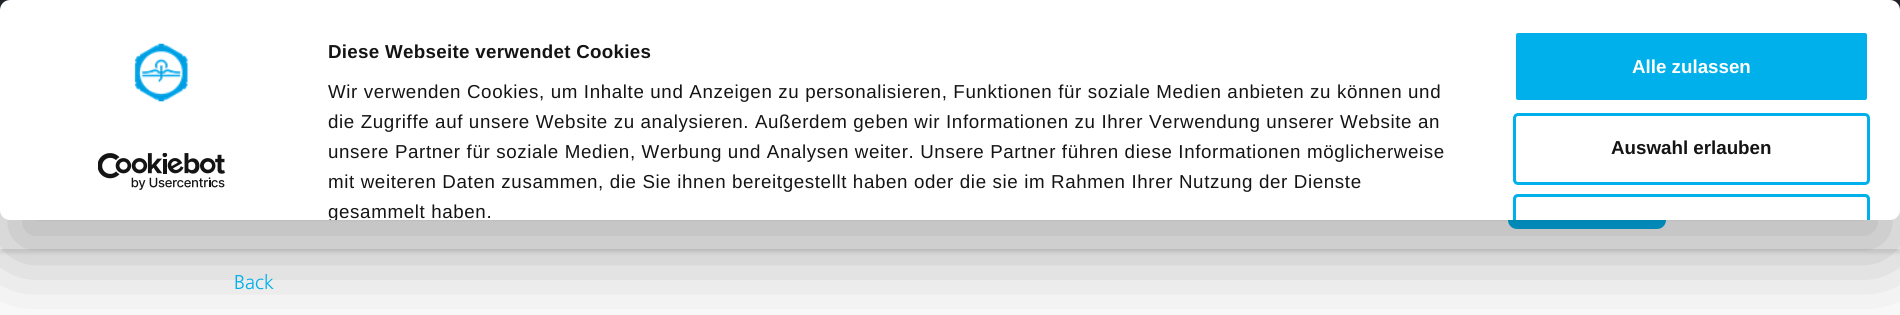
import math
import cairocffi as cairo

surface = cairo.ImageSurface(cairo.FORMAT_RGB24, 1900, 315)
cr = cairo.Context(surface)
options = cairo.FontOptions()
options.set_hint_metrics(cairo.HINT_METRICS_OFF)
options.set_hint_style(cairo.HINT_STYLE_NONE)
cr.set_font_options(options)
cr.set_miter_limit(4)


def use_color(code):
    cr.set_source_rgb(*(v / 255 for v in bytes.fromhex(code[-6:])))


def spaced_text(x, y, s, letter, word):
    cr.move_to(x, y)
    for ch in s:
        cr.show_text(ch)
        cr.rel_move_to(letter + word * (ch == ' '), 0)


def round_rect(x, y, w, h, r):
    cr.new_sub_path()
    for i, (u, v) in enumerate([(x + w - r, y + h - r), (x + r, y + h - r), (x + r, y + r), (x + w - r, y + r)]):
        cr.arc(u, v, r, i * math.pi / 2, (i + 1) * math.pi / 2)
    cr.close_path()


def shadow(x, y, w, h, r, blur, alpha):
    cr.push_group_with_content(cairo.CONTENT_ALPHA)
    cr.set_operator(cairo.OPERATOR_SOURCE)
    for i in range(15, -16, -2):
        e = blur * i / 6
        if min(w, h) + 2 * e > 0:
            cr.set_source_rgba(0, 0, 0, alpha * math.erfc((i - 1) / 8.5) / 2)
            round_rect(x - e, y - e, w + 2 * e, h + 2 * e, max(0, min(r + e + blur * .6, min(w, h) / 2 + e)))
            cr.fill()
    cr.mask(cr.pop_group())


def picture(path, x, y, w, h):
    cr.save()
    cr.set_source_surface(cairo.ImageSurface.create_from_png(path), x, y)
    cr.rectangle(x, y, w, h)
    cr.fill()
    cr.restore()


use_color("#ffffff")
cr.paint()
use_color("#000000")
shadow(0, 4, 1900, 249, 0, 2, 0.1)
use_color("#ffffff")
cr.rectangle(0, 210, 1900, 39)
cr.fill()
use_color("#212529")
cr.rectangle(0, 0, 1900, 10)
cr.fill()
use_color("#00b0eb")
round_rect(1508, 179, 158, 50, 9)
cr.fill()
use_color("#000000")
shadow(0, 38, 1900, 220, 10, 44, 0.3)
use_color("#ffffff")
round_rect(0, 0, 1900, 220, 10)
cr.fill()
picture("img1.png", 134, 43, 55, 59)
picture("img2.png", 98, 153, 127, 37)
cr.select_font_face("Liberation Sans", cairo.FONT_SLANT_NORMAL, cairo.FONT_WEIGHT_BOLD)
cr.set_font_size(18.75)
use_color("#141414")
spaced_text(328, 58, "Diese Webseite verwendet Cookies", 0.3, 0)
cr.select_font_face("Liberation Sans")
spaced_text(328, 98, "Wir verwenden Cookies, um Inhalte und Anzeigen zu personalisieren, Funktionen für soziale Medien anbieten zu können und", 0.62, 0)
spaced_text(328, 128, "die Zugriffe auf unsere Website zu analysieren. Außerdem geben wir Informationen zu Ihrer Verwendung unserer Website an", 0.62, 0)
spaced_text(328, 158, "unsere Partner für soziale Medien, Werbung und Analysen weiter. Unsere Partner führen diese Informationen möglicherweise", 0.62, 0)
spaced_text(328, 188, "mit weiteren Daten zusammen, die Sie ihnen bereitgestellt haben oder die sie im Rahmen Ihrer Nutzung der Dienste", 0.62, 0)
cr.save()
round_rect(0, 0, 1900, 220, 10)
cr.clip()
spaced_text(328, 218, "gesammelt haben.", 0.62, 0)
cr.restore()
use_color("#00b0eb")
round_rect(1514.5, 31.5, 354, 70, 3.5)
cr.fill_preserve()
use_color("#ffffff")
cr.set_line_width(3)
cr.stroke()
cr.select_font_face("Liberation Sans", cairo.FONT_SLANT_NORMAL, cairo.FONT_WEIGHT_BOLD)
cr.move_to(1632, 73)
cr.show_text("Alle zulassen")
round_rect(1514.5, 114.5, 354, 69, 3.5)
use_color("#00b0eb")
cr.stroke()
use_color("#141414")
cr.move_to(1611, 154)
cr.show_text("Auswahl erlauben")
use_color("#00b0eb")
cr.new_path()
cr.move_to(1518, 194)
cr.curve_to(1515, 194, 1513, 196, 1513, 199)
cr.line_to(1513, 220)
cr.line_to(1516, 220)
cr.line_to(1516, 199)
cr.curve_to(1516, 198, 1517, 197, 1518, 197)
cr.line_to(1865, 197)
cr.curve_to(1866, 197, 1867, 198, 1867, 199)
cr.line_to(1867, 220)
cr.line_to(1870, 220)
cr.line_to(1870, 199)
cr.curve_to(1870, 196, 1868, 194, 1865, 194)
cr.close_path()
cr.fill()
cr.select_font_face("Frutiger Light")
cr.set_font_size(20)
cr.move_to(234, 289)
cr.show_text("Back")
surface.write_to_png("result.png")
